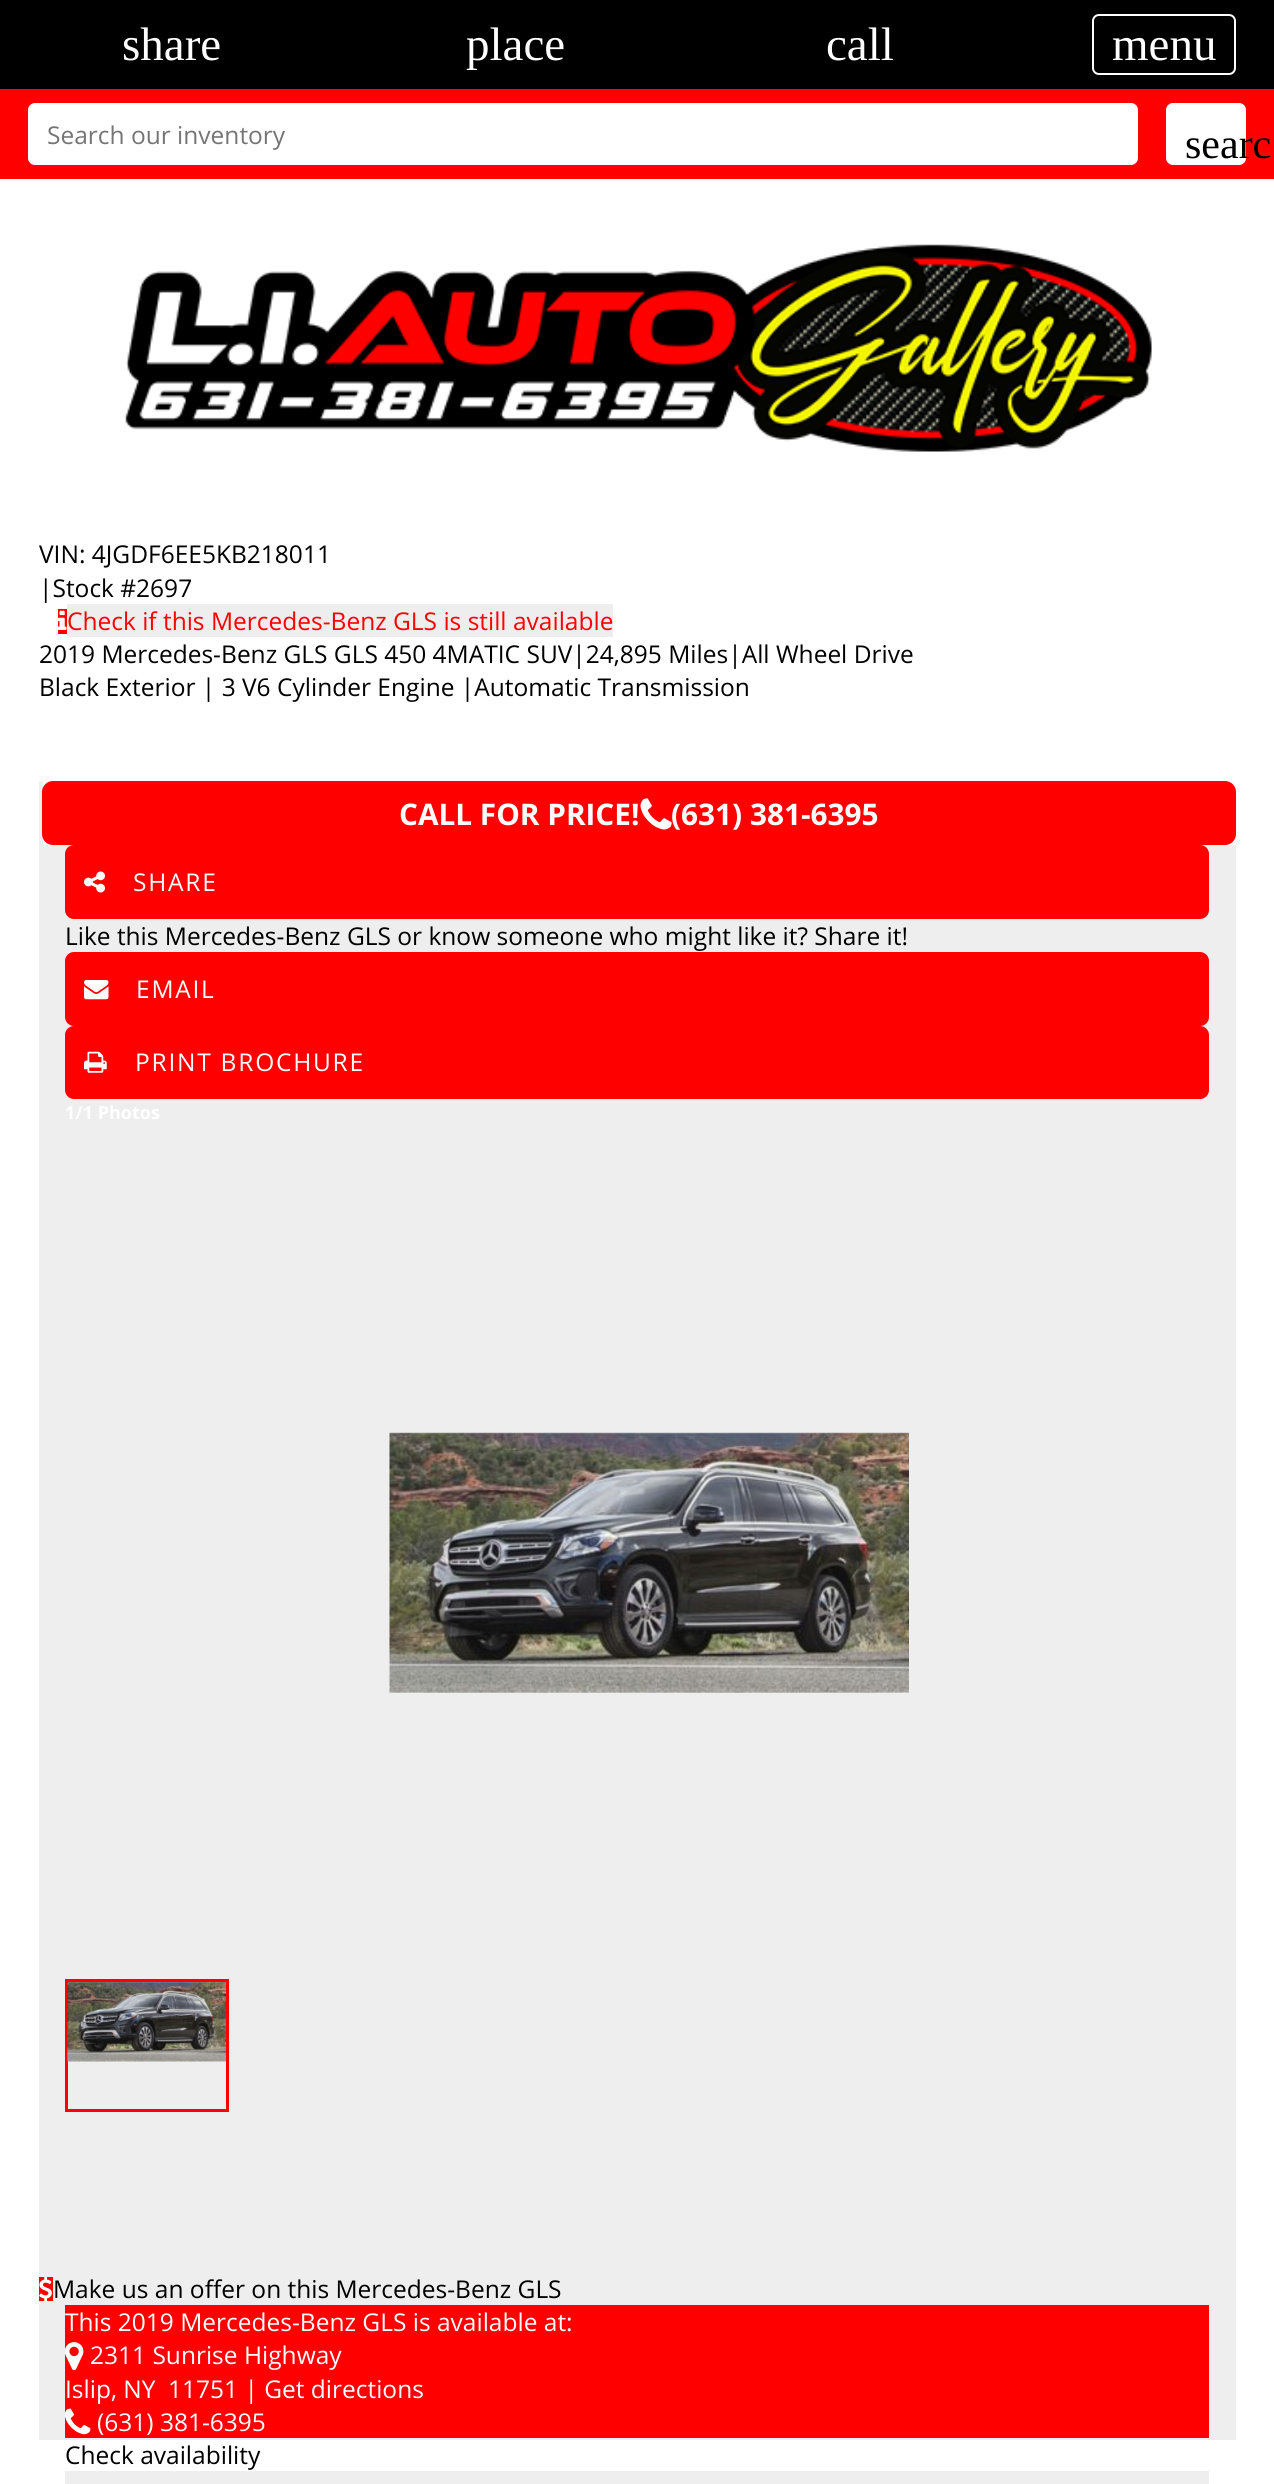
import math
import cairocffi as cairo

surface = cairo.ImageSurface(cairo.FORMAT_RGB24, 1274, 2484)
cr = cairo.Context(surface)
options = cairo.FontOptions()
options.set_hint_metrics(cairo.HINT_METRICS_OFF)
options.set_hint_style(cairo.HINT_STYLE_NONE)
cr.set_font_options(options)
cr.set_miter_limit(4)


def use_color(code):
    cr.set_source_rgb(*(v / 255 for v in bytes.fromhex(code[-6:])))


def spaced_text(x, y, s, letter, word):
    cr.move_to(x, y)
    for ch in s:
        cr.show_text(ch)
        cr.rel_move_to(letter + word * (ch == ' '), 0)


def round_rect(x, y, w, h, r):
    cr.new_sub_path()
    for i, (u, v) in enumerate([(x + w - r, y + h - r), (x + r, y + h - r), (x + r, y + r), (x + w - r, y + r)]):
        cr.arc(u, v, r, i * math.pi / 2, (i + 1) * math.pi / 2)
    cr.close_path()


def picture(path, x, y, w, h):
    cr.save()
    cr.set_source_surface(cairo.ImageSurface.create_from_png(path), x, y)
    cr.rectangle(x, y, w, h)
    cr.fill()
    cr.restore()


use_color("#ffffff")
cr.paint()
use_color("#000000")
cr.rectangle(0, 0, 1274, 89)
cr.fill()
cr.select_font_face("Liberation Serif")
cr.set_font_size(47)
use_color("#ffffff")
cr.move_to(122, 60)
cr.show_text("share")
cr.move_to(466, 60)
cr.show_text("place")
cr.move_to(826, 60)
cr.show_text("call")
round_rect(1093, 15, 142, 59, 6)
cr.stroke()
cr.move_to(1112, 60)
cr.show_text("menu")
picture("img1.png", 125, 244, 1027, 208)
use_color("#ff0000")
cr.rectangle(0, 89, 1274, 90)
cr.fill()
use_color("#ffffff")
round_rect(29, 104, 1108, 60, 6)
cr.fill_preserve()
cr.stroke()
cr.select_font_face("Open Sans")
cr.set_font_size(24.5)
use_color("#757575")
cr.move_to(47, 144)
cr.show_text("Search our inventory")
use_color("#ffffff")
round_rect(1167, 104, 78, 60, 6)
cr.fill_preserve()
cr.stroke()
cr.select_font_face("Liberation Serif")
cr.set_font_size(42)
use_color("#000000")
cr.move_to(1185, 158)
cr.show_text("searc")
cr.select_font_face("Open Sans")
cr.set_font_size(24.5)
cr.move_to(39, 563)
cr.show_text("VIN: 4JGDF6EE5KB218011")
cr.move_to(39, 597)
cr.show_text("|Stock #2697")
use_color("#eeeeee")
cr.rectangle(67, 604, 546, 33)
cr.fill()
use_color("#ff0000")
cr.rectangle(58, 609, 9, 25)
cr.fill()
picture("img2.png", 58, 610, 9, 20)
cr.move_to(67, 630)
cr.show_text("Check if this Mercedes-Benz GLS is still available")
use_color("#000000")
cr.move_to(39, 663)
cr.show_text("2019 Mercedes-Benz GLS GLS 450 4MATIC SUV|24,895 Miles|All Wheel Drive")
cr.move_to(39, 696)
cr.show_text("Black Exterior | 3 V6 Cylinder Engine |Automatic Transmission")
use_color("#eeeeee")
cr.rectangle(39, 781, 4, 64)
cr.fill()
use_color("#ff0000")
round_rect(42, 781, 1194, 64, 11)
cr.fill()
cr.select_font_face("Open Sans", cairo.FONT_SLANT_NORMAL, cairo.FONT_WEIGHT_BOLD)
cr.set_font_size(29.75)
use_color("#ffffff")
cr.move_to(399, 825)
cr.show_text("CALL FOR PRICE!")
picture("img3.png", 640, 798, 32, 32)
cr.move_to(671, 825)
cr.show_text("(631) 381-6395")
use_color("#eeeeee")
cr.rectangle(39, 845, 1197, 1595)
cr.fill()
use_color("#ff0000")
round_rect(65, 845, 1144, 74, 9)
cr.fill()
picture("img4.png", 84, 871, 21, 22)
cr.select_font_face("Open Sans")
cr.set_font_size(24.5)
use_color("#ffffff")
spaced_text(133, 891, "SHARE", 1.75, 0)
use_color("#000000")
cr.move_to(65, 945)
cr.show_text("Like this Mercedes-Benz GLS or know someone who might like it? Share it!")
use_color("#ff0000")
round_rect(65, 952, 1144, 74, 9)
cr.fill()
picture("img5.png", 84, 980, 25, 20)
use_color("#ffffff")
spaced_text(136, 998, "EMAIL", 1.75, 0)
use_color("#ff0000")
round_rect(65, 1026, 1144, 73, 9)
cr.fill()
picture("img6.png", 84, 1051, 23, 22)
use_color("#ffffff")
spaced_text(135, 1071, "PRINT BROCHURE", 1.75, 0)
cr.select_font_face("Open Sans", cairo.FONT_SLANT_NORMAL, cairo.FONT_WEIGHT_BOLD)
cr.set_font_size(18)
cr.move_to(65, 1119)
cr.show_text("1/1 Photos")
picture("img7.png", 389, 1432, 520, 261)
cr.rectangle(66.5, 1980.5, 161, 130)
use_color("#ff0000")
cr.set_line_width(3)
cr.stroke()
picture("img8.png", 67, 1982, 159, 80)
cr.rectangle(39, 2277, 14, 24)
cr.fill()
picture("img9.png", 39, 2276, 13, 26)
cr.select_font_face("Open Sans")
cr.set_font_size(24.5)
use_color("#000000")
cr.move_to(53, 2298)
cr.show_text("Make us an offer on this Mercedes-Benz GLS")
use_color("#ff0000")
cr.rectangle(65, 2305, 1144, 133)
cr.fill()
use_color("#ffffff")
cr.move_to(65, 2331)
cr.show_text("This 2019 Mercedes-Benz GLS is available at:")
picture("img10.png", 65, 2342, 19, 29)
cr.move_to(90, 2364)
cr.show_text("2311 Sunrise Highway")
cr.move_to(65, 2398)
cr.show_text("Islip, NY")
cr.move_to(168, 2398)
cr.show_text("11751 | Get directions")
picture("img11.png", 65, 2408, 26, 27)
cr.move_to(97, 2431)
cr.show_text("(631) 381-6395")
use_color("#000000")
cr.move_to(65, 2464)
cr.show_text("Check availability")
use_color("#eeeeee")
cr.rectangle(65, 2471, 1144, 13)
cr.fill()
surface.write_to_png("result.png")
